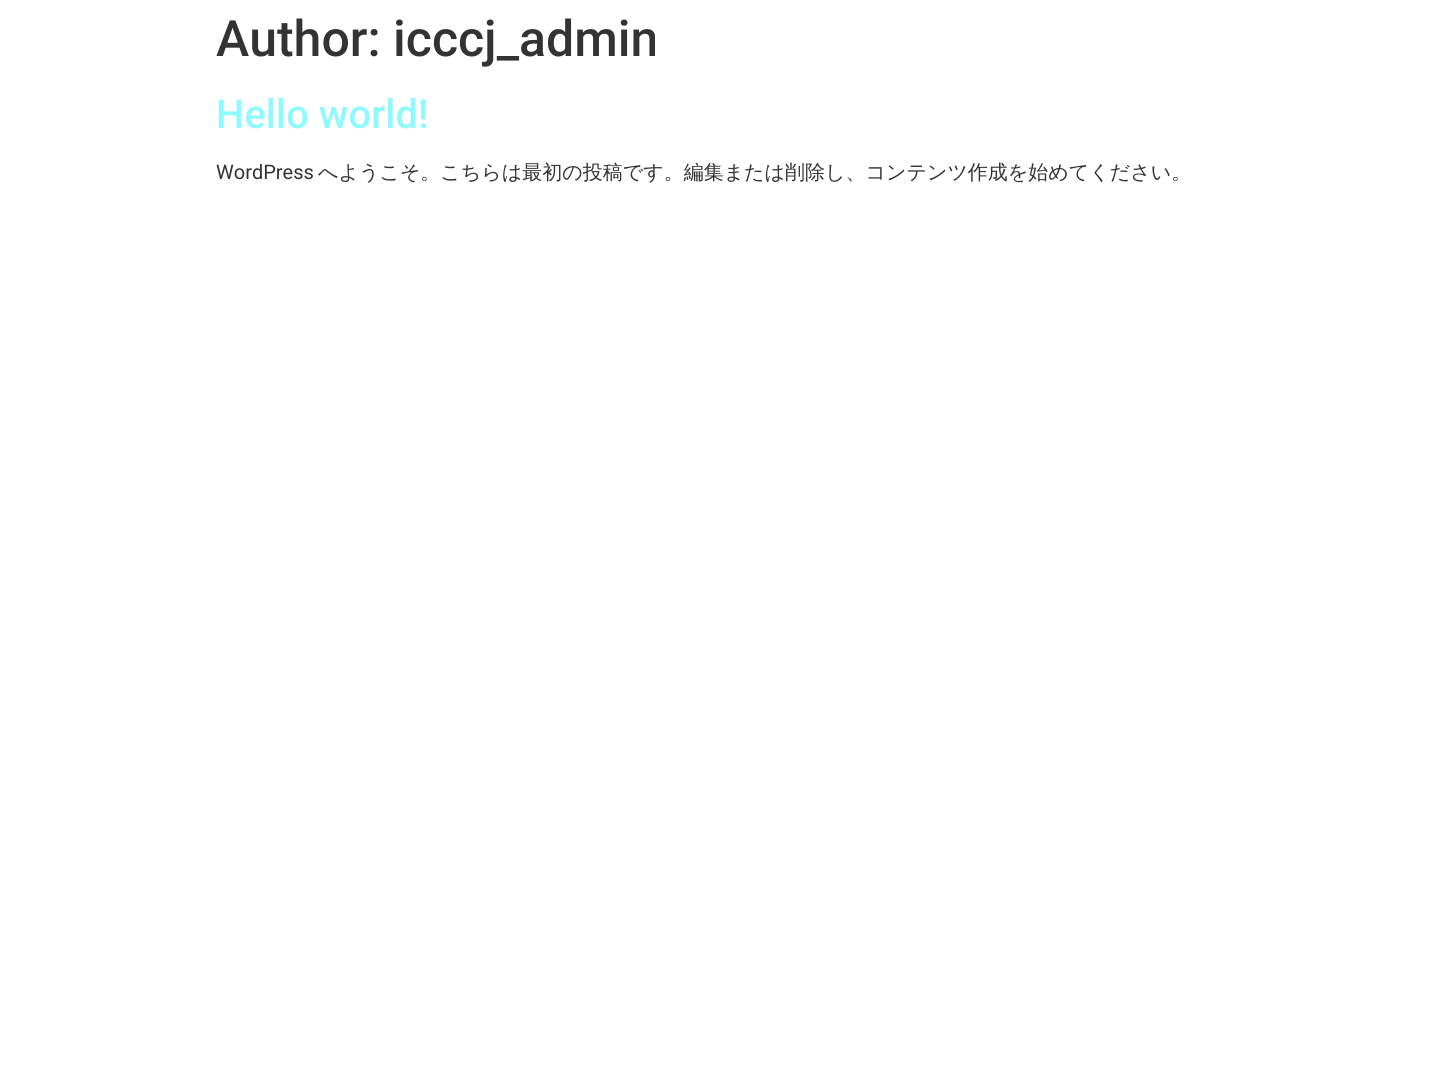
import math
import cairocffi as cairo

surface = cairo.ImageSurface(cairo.FORMAT_RGB24, 1431, 1067)
cr = cairo.Context(surface)
options = cairo.FontOptions()
options.set_hint_metrics(cairo.HINT_METRICS_OFF)
options.set_hint_style(cairo.HINT_STYLE_NONE)
cr.set_font_options(options)
cr.set_miter_limit(4)


def use_color(code):
    cr.set_source_rgb(*(v / 255 for v in bytes.fromhex(code[-6:])))


use_color("#ffffff")
cr.paint()
cr.select_font_face("Roboto Medium")
cr.set_font_size(50)
use_color("#333333")
cr.move_to(216, 56)
cr.show_text("Author: icccj_admin")
cr.set_font_size(40)
use_color("#8efaff")
cr.move_to(216, 128)
cr.show_text("Hello world!")
cr.select_font_face("Roboto")
cr.set_font_size(20)
use_color("#333333")
cr.move_to(216, 179)
cr.show_text("WordPress")
cr.select_font_face("WenQuanYi Zen Hei Medium")
cr.move_to(318, 179)
cr.show_text("へようこそ。こちらは最初の投稿です。編集または削除し、コンテンツ作成を始めてください。")
surface.write_to_png("result.png")
